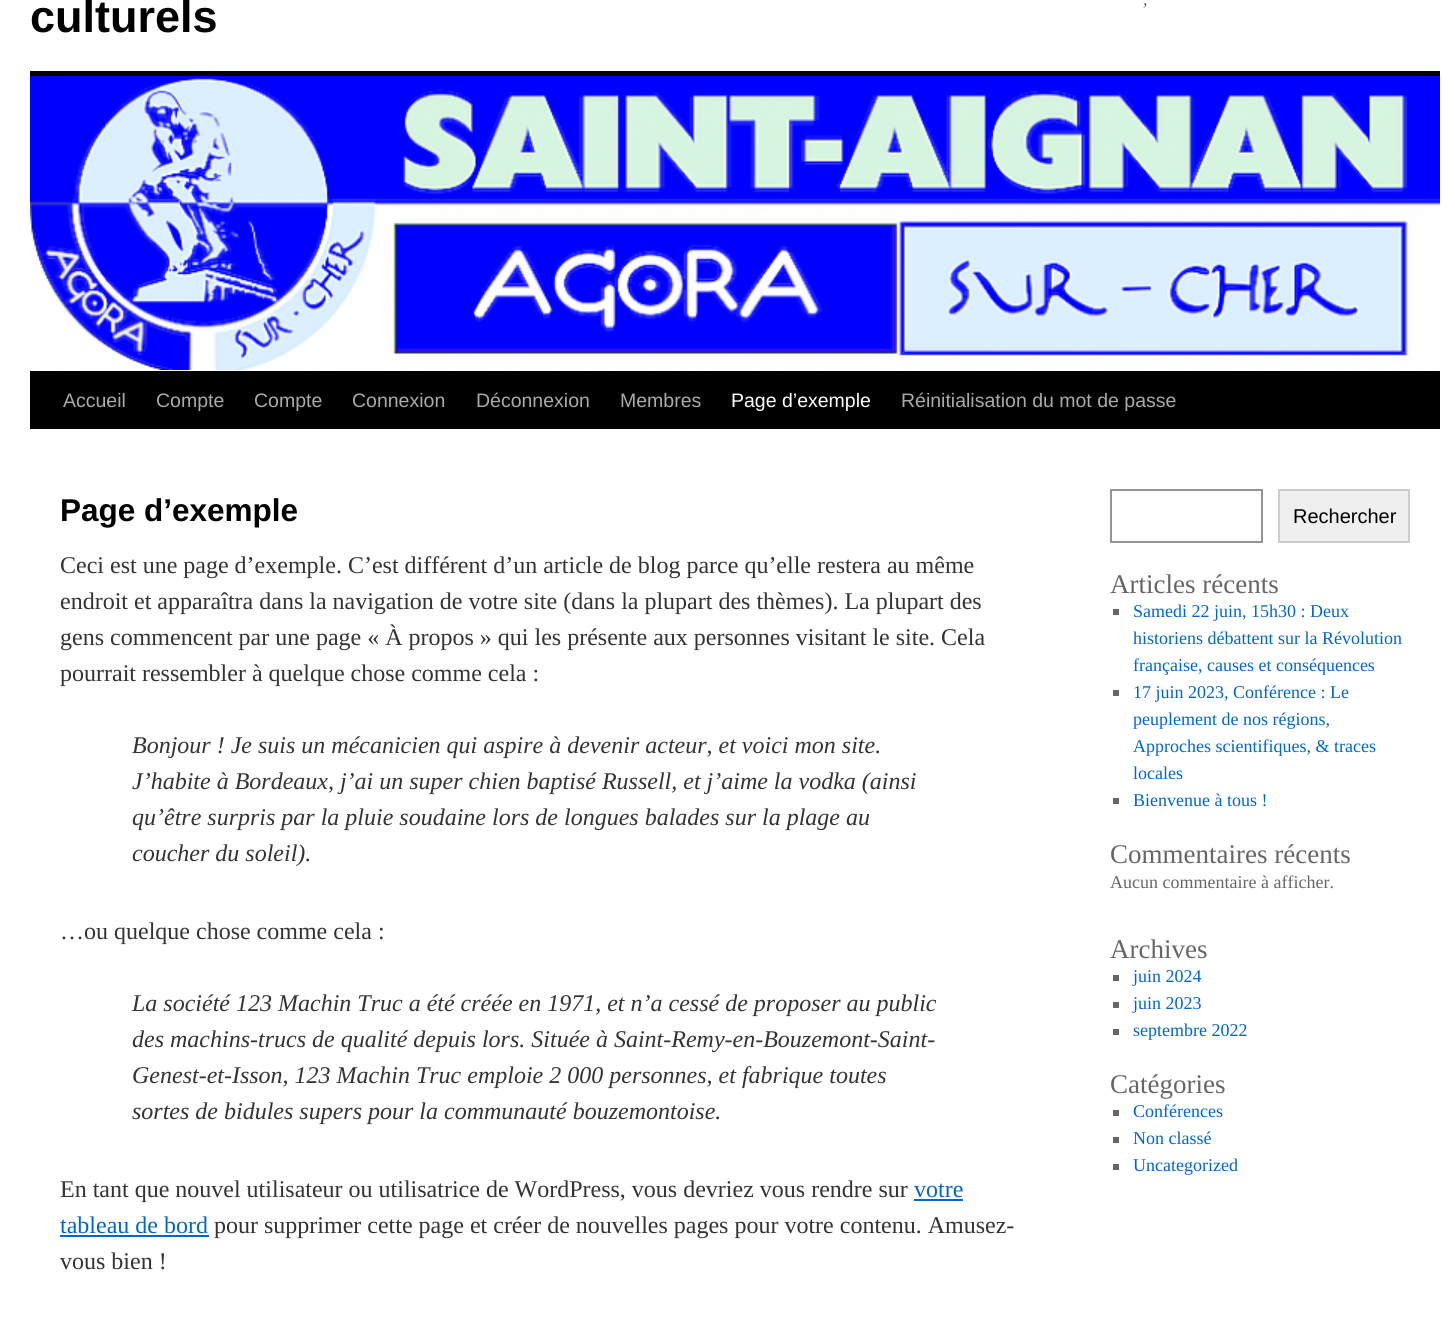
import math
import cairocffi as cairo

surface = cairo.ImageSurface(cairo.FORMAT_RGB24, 1455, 1319)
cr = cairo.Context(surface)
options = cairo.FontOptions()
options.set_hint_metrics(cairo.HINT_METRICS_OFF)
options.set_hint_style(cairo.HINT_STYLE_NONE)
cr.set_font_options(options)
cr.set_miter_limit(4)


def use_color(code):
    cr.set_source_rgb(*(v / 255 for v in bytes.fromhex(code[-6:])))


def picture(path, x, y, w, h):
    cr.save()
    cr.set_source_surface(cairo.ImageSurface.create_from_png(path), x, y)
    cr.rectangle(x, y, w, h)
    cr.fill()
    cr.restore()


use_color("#ffffff")
cr.paint()
cr.select_font_face("Liberation Sans", cairo.FONT_SLANT_NORMAL, cairo.FONT_WEIGHT_BOLD)
cr.set_font_size(45)
use_color("#000000")
cr.move_to(30, 32)
cr.show_text("culturels")
cr.select_font_face("Liberation Serif", cairo.FONT_SLANT_ITALIC)
cr.set_font_size(18)
use_color("#666666")
cr.move_to(1143, 5)
cr.show_text(",")
use_color("#000000")
cr.rectangle(30, 71, 1410, 5)
cr.fill()
cr.rectangle(30, 371, 1410, 58)
cr.fill()
picture("img1.png", 30, 76, 1410, 294)
cr.select_font_face("Liberation Sans")
cr.set_font_size(19.5)
use_color("#aaaaaa")
cr.move_to(63, 407)
cr.show_text("Accueil")
cr.move_to(156, 407)
cr.show_text("Compte")
cr.move_to(254, 407)
cr.show_text("Compte")
cr.move_to(352, 407)
cr.show_text("Connexion")
cr.move_to(476, 407)
cr.show_text("Déconnexion")
cr.move_to(620, 407)
cr.show_text("Membres")
use_color("#ffffff")
cr.move_to(731, 407)
cr.show_text("Page d’exemple")
use_color("#aaaaaa")
cr.move_to(901, 407)
cr.show_text("Réinitialisation du mot de passe")
cr.select_font_face("Liberation Sans", cairo.FONT_SLANT_NORMAL, cairo.FONT_WEIGHT_BOLD)
cr.set_font_size(31.5)
use_color("#000000")
cr.move_to(60, 521)
cr.show_text("Page d’exemple")
cr.select_font_face("Liberation Serif")
cr.set_font_size(24)
use_color("#333333")
cr.move_to(60, 573)
cr.show_text("Ceci est une page d’exemple. C’est différent d’un article de blog parce qu’elle restera au même")
cr.move_to(60, 609)
cr.show_text("endroit et apparaîtra dans la navigation de votre site (dans la plupart des thèmes). La plupart des")
cr.move_to(60, 645)
cr.show_text("gens commencent par une page « À propos » qui les présente aux personnes visitant le site. Cela")
cr.move_to(60, 681)
cr.show_text("pourrait ressembler à quelque chose comme cela :")
cr.select_font_face("Liberation Serif", cairo.FONT_SLANT_ITALIC)
cr.move_to(132, 753)
cr.show_text("Bonjour ! Je suis un mécanicien qui aspire à devenir acteur, et voici mon site.")
cr.move_to(132, 789)
cr.show_text("J’habite à Bordeaux, j’ai un super chien baptisé Russell, et j’aime la vodka (ainsi")
cr.move_to(132, 825)
cr.show_text("qu’être surpris par la pluie soudaine lors de longues balades sur la plage au")
cr.move_to(132, 861)
cr.show_text("coucher du soleil).")
cr.select_font_face("Liberation Serif")
cr.move_to(60, 939)
cr.show_text("…ou quelque chose comme cela :")
cr.select_font_face("Liberation Serif", cairo.FONT_SLANT_ITALIC)
cr.move_to(132, 1011)
cr.show_text("La société 123 Machin Truc a été créée en 1971, et n’a cessé de proposer au public")
cr.move_to(132, 1047)
cr.show_text("des machins-trucs de qualité depuis lors. Située à Saint-Remy-en-Bouzemont-Saint-")
cr.move_to(132, 1083)
cr.show_text("Genest-et-Isson, 123 Machin Truc emploie 2 000 personnes, et fabrique toutes")
cr.move_to(132, 1119)
cr.show_text("sortes de bidules supers pour la communauté bouzemontoise.")
cr.select_font_face("Liberation Serif")
cr.move_to(60, 1197)
cr.show_text("En tant que nouvel utilisateur ou utilisatrice de WordPress, vous devriez vous rendre sur")
use_color("#0066cc")
cr.move_to(914, 1197)
cr.show_text("votre")
cr.rectangle(914, 1199, 49, 2)
cr.fill()
cr.move_to(60, 1233)
cr.show_text("tableau de bord")
cr.rectangle(60, 1235, 149, 2)
cr.fill()
use_color("#333333")
cr.move_to(214, 1233)
cr.show_text("pour supprimer cette page et créer de nouvelles pages pour votre contenu. Amusez-")
cr.move_to(60, 1269)
cr.show_text("vous bien !")
cr.rectangle(1111, 490, 151, 52)
use_color("#949494")
cr.stroke()
use_color("#efefef")
cr.rectangle(1279, 490, 130, 52)
cr.fill_preserve()
use_color("#cccccc")
cr.stroke()
cr.select_font_face("Liberation Sans")
cr.set_font_size(20)
use_color("#000000")
cr.move_to(1293, 523)
cr.show_text("Rechercher")
cr.select_font_face("Liberation Serif")
cr.set_font_size(27)
use_color("#666666")
cr.move_to(1110, 593)
cr.show_text("Articles récents")
cr.rectangle(1113, 609, 6, 6)
cr.fill()
cr.set_font_size(18)
use_color("#0066cc")
cr.move_to(1133, 617)
cr.show_text("Samedi 22 juin, 15h30 : Deux")
cr.move_to(1133, 644)
cr.show_text("historiens débattent sur la Révolution")
cr.move_to(1133, 671)
cr.show_text("française, causes et conséquences")
use_color("#666666")
cr.rectangle(1113, 690, 6, 6)
cr.fill()
use_color("#0066cc")
cr.move_to(1133, 698)
cr.show_text("17 juin 2023, Conférence : Le")
cr.move_to(1133, 725)
cr.show_text("peuplement de nos régions,")
cr.move_to(1133, 752)
cr.show_text("Approches scientifiques, & traces")
cr.move_to(1133, 779)
cr.show_text("locales")
use_color("#666666")
cr.rectangle(1113, 798, 6, 6)
cr.fill()
use_color("#0066cc")
cr.move_to(1133, 806)
cr.show_text("Bienvenue à tous !")
cr.set_font_size(27)
use_color("#666666")
cr.move_to(1110, 863)
cr.show_text("Commentaires récents")
cr.set_font_size(18)
cr.move_to(1110, 888)
cr.show_text("Aucun commentaire à afficher.")
cr.set_font_size(27)
cr.move_to(1110, 958)
cr.show_text("Archives")
cr.rectangle(1113, 975, 6, 6)
cr.fill()
cr.set_font_size(18)
use_color("#0066cc")
cr.move_to(1133, 982)
cr.show_text("juin 2024")
use_color("#666666")
cr.rectangle(1113, 1002, 6, 6)
cr.fill()
use_color("#0066cc")
cr.move_to(1133, 1009)
cr.show_text("juin 2023")
use_color("#666666")
cr.rectangle(1113, 1029, 6, 6)
cr.fill()
use_color("#0066cc")
cr.move_to(1133, 1036)
cr.show_text("septembre 2022")
cr.set_font_size(27)
use_color("#666666")
cr.move_to(1110, 1093)
cr.show_text("Catégories")
cr.rectangle(1113, 1110, 6, 6)
cr.fill()
cr.set_font_size(18)
use_color("#0066cc")
cr.move_to(1133, 1117)
cr.show_text("Conférences")
use_color("#666666")
cr.rectangle(1113, 1137, 6, 6)
cr.fill()
use_color("#0066cc")
cr.move_to(1133, 1144)
cr.show_text("Non classé")
use_color("#666666")
cr.rectangle(1113, 1164, 6, 6)
cr.fill()
use_color("#0066cc")
cr.move_to(1133, 1171)
cr.show_text("Uncategorized")
surface.write_to_png("result.png")
